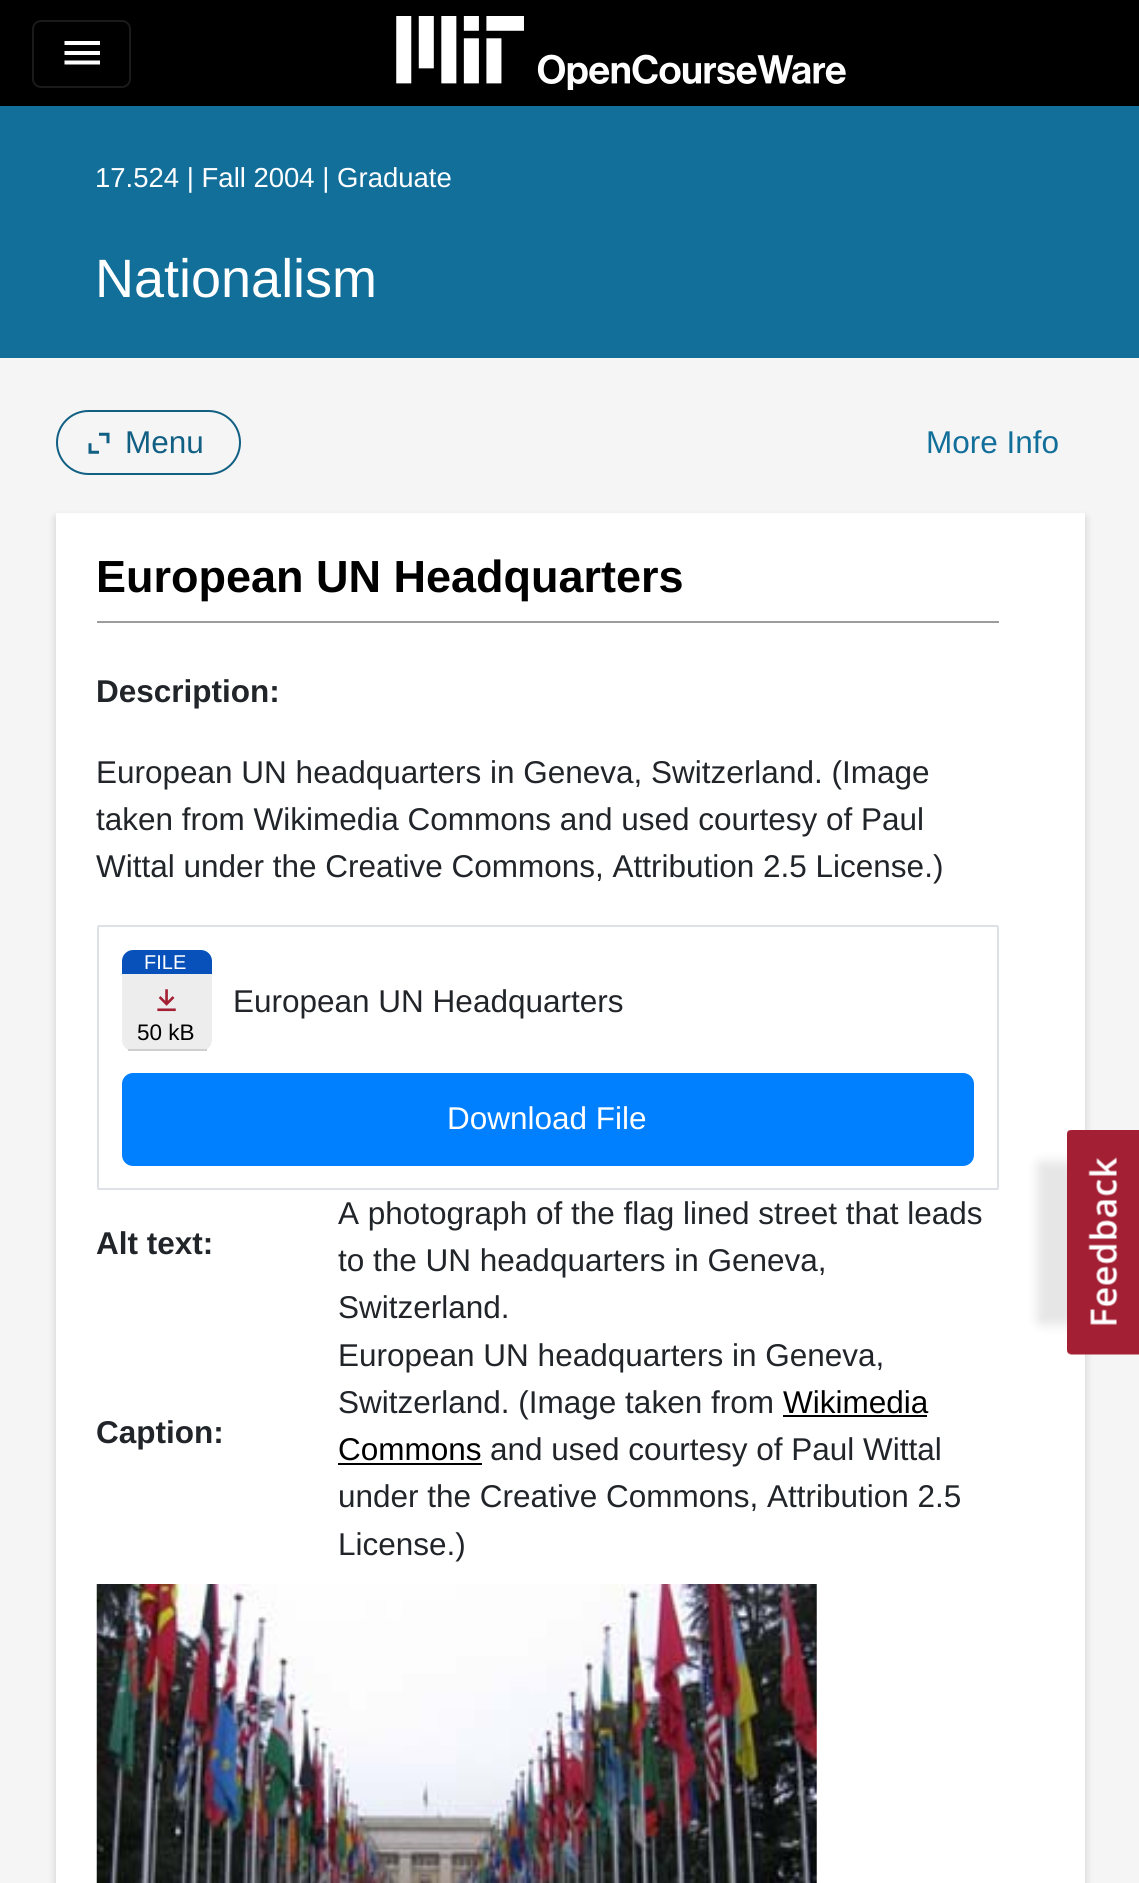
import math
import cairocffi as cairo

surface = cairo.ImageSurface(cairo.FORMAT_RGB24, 1139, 1883)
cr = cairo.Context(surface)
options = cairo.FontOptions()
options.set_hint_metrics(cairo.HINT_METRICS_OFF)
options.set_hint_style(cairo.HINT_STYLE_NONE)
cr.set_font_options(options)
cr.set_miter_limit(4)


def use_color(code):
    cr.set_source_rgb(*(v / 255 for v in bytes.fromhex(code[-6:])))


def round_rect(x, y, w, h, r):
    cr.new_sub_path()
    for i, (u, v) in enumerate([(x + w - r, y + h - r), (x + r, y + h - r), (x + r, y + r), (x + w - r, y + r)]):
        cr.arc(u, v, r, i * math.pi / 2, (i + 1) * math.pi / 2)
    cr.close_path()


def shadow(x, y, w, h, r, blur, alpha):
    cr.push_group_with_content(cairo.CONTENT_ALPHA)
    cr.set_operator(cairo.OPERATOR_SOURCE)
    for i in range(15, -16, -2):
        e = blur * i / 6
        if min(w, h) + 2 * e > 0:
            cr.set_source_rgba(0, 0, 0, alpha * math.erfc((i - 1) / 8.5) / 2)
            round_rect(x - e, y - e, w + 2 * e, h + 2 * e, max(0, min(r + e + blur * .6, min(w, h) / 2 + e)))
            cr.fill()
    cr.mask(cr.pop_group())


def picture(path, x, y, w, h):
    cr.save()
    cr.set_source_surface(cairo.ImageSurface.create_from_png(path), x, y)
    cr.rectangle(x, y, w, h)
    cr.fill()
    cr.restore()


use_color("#f5f5f5")
cr.paint()
use_color("#000000")
cr.rectangle(0, 0, 1139, 106)
cr.fill()
round_rect(33, 21, 97, 66, 8)
use_color("#1a1a1a")
cr.stroke()
use_color("#ffffff")
cr.new_path()
cr.move_to(64.5, 41)
cr.line_to(100, 41)
cr.line_to(100, 45)
cr.line_to(64.5, 45)
cr.close_path()
cr.move_to(64.5, 55)
cr.line_to(64.5, 51)
cr.line_to(100, 51)
cr.line_to(100, 55)
cr.close_path()
cr.move_to(64.5, 64.5)
cr.line_to(64.5, 60.5)
cr.line_to(100, 60.5)
cr.line_to(100, 64.5)
cr.close_path()
cr.fill()
picture("img1.png", 396, 16, 450, 74)
use_color("#126f9a")
cr.rectangle(0, 106, 1139, 252)
cr.fill()
cr.select_font_face("Liberation Sans")
cr.set_font_size(27.5)
use_color("#ffffff")
cr.move_to(95, 187)
cr.show_text("17.524 | Fall 2004 | Graduate")
cr.set_font_size(54)
cr.move_to(95, 297)
cr.show_text("Nationalism")
round_rect(57, 411, 183, 63, 31.5)
use_color("#115f83")
cr.stroke()
picture("img2.png", 88, 432, 22, 22)
cr.set_font_size(31.5)
cr.move_to(125, 453)
cr.show_text("Menu")
use_color("#126f9a")
cr.move_to(926, 453)
cr.show_text("More Info")
use_color("#000000")
shadow(56, 518, 1029, 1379, 0, 4.5, 0.16)
use_color("#ffffff")
cr.rectangle(56, 513, 1029, 1370)
cr.fill()
use_color("#9c9d9e")
cr.rectangle(97, 621, 902, 2)
cr.fill()
cr.select_font_face("Liberation Sans", cairo.FONT_SLANT_NORMAL, cairo.FONT_WEIGHT_BOLD)
cr.set_font_size(45)
use_color("#000000")
cr.move_to(96, 592)
cr.show_text("European UN Headquarters")
cr.set_font_size(31.5)
use_color("#212529")
cr.move_to(96, 702)
cr.show_text("Description:")
cr.select_font_face("Liberation Sans")
cr.move_to(96, 783)
cr.show_text("European UN headquarters in Geneva, Switzerland. (Image")
cr.move_to(96, 830)
cr.show_text("taken from Wikimedia Commons and used courtesy of Paul")
cr.move_to(96, 877)
cr.show_text("Wittal under the Creative Commons, Attribution 2.5 License.)")
round_rect(98, 926, 900, 263, 1)
use_color("#dee2e6")
cr.stroke()
use_color("#0851bb")
cr.new_path()
cr.move_to(133, 950)
cr.line_to(201, 950)
cr.curve_to(207, 950, 212, 955, 212, 961)
cr.line_to(212, 974)
cr.line_to(122, 974)
cr.line_to(122, 961)
cr.curve_to(122, 955, 127, 950, 133, 950)
cr.close_path()
cr.fill()
cr.set_font_size(20)
use_color("#ffffff")
cr.move_to(144, 969)
cr.show_text("FILE")
use_color("#ededed")
cr.new_path()
cr.move_to(122, 974)
cr.line_to(212, 974)
cr.line_to(212, 1040)
cr.curve_to(212, 1046, 207, 1051, 201, 1051)
cr.line_to(133, 1051)
cr.curve_to(127, 1051, 122, 1046, 122, 1040)
cr.close_path()
cr.fill()
use_color("#cfcfcf")
cr.rectangle(128, 1049, 79, 2)
cr.fill()
picture("img3.png", 157, 989, 19, 23)
cr.set_font_size(22.5)
use_color("#000000")
cr.move_to(137, 1040)
cr.show_text("50 kB")
cr.set_font_size(31.5)
use_color("#212529")
cr.move_to(233, 1012)
cr.show_text("European UN Headquarters")
use_color("#007fff")
round_rect(122, 1073, 852, 93, 11)
cr.fill()
use_color("#ffffff")
cr.move_to(447, 1129)
cr.show_text("Download File")
cr.select_font_face("Liberation Sans", cairo.FONT_SLANT_NORMAL, cairo.FONT_WEIGHT_BOLD)
use_color("#212529")
cr.move_to(96, 1254)
cr.show_text("Alt text:")
cr.select_font_face("Liberation Sans")
cr.move_to(338, 1224)
cr.show_text("A photograph of the flag lined street that leads")
cr.move_to(338, 1271)
cr.show_text("to the UN headquarters in Geneva,")
cr.move_to(338, 1318)
cr.show_text("Switzerland.")
cr.select_font_face("Liberation Sans", cairo.FONT_SLANT_NORMAL, cairo.FONT_WEIGHT_BOLD)
cr.move_to(96, 1443)
cr.show_text("Caption:")
cr.select_font_face("Liberation Sans")
cr.move_to(338, 1366)
cr.show_text("European UN headquarters in Geneva,")
cr.move_to(338, 1413)
cr.show_text("Switzerland. (Image taken from")
use_color("#000000")
cr.move_to(783, 1413)
cr.show_text("Wikimedia")
cr.rectangle(783, 1415, 144, 2)
cr.fill()
cr.move_to(338, 1460)
cr.show_text("Commons")
cr.rectangle(338, 1463, 144, 2)
cr.fill()
use_color("#212529")
cr.move_to(490, 1460)
cr.show_text("and used courtesy of Paul Wittal")
cr.move_to(338, 1507)
cr.show_text("under the Creative Commons, Attribution 2.5")
cr.move_to(338, 1555)
cr.show_text("License.)")
picture("img4.png", 96, 1584, 721, 299)
use_color("#000000")
shadow(1037, 1161, 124, 164, 5, 5.5, 0.1)
picture("img5.png", 1067, 1130, 72, 225)
surface.write_to_png("result.png")
